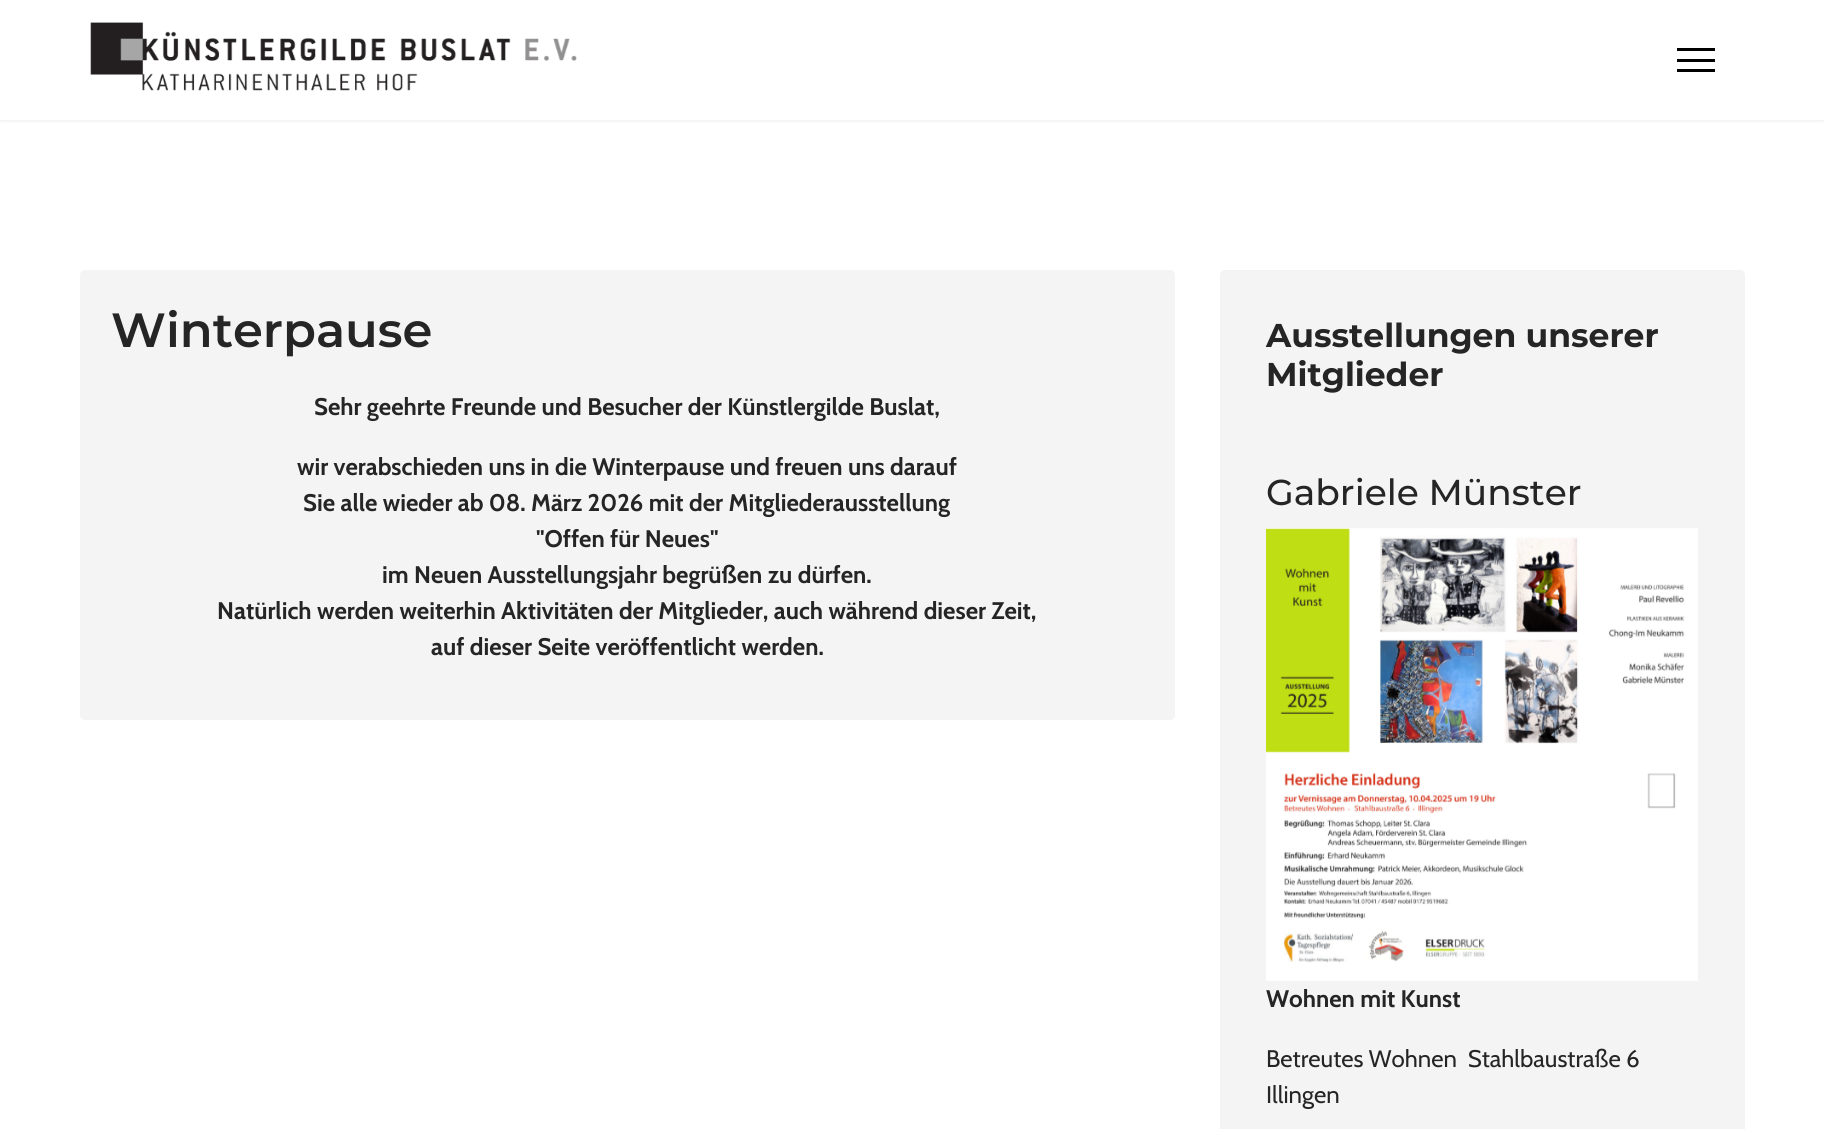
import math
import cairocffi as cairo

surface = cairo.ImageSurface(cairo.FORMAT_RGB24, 1824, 1129)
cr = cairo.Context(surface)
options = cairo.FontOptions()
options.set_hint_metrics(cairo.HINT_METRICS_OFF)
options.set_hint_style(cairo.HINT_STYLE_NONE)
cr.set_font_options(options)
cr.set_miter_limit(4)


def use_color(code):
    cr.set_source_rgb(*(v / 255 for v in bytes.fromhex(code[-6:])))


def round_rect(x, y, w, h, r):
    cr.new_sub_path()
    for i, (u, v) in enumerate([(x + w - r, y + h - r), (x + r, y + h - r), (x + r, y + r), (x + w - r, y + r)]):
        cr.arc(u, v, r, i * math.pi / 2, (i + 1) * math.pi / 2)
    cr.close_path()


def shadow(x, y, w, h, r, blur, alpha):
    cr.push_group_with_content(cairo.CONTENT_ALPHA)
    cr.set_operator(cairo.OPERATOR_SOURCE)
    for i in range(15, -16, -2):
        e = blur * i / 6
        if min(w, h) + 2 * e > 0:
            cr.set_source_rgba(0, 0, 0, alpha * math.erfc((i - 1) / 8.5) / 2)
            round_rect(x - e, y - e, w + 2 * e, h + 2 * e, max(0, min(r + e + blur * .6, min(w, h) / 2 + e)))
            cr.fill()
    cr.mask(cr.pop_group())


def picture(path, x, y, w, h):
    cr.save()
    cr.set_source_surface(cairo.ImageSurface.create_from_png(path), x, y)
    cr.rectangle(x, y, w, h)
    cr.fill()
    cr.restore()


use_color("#ffffff")
cr.paint()
cr.save()
cr.rectangle(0, 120, 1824, 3)
cr.clip()
use_color("#000000")
shadow(0, 0, 1824, 120, 0, 3, 0.1)
cr.restore()
picture("img1.png", 90, 22, 487, 69)
use_color("#000000")
cr.rectangle(1677, 48, 38, 3)
cr.fill()
cr.rectangle(1677, 59, 38, 3)
cr.fill()
cr.rectangle(1677, 69, 38, 3)
cr.fill()
use_color("#f4f4f4")
round_rect(80, 270, 1095, 450, 5)
cr.fill()
cr.select_font_face("Montserrat SemiBold")
cr.set_font_size(48)
use_color("#252525")
cr.move_to(111, 347)
cr.show_text("Winterpause")
cr.select_font_face("Cabin", cairo.FONT_SLANT_NORMAL, cairo.FONT_WEIGHT_BOLD)
cr.set_font_size(24)
cr.move_to(314, 415)
cr.show_text("Sehr geehrte Freunde und Besucher der Künstlergilde Buslat,")
cr.move_to(297, 475)
cr.show_text("wir verabschieden uns in die Winterpause und freuen uns darauf")
cr.move_to(303, 511)
cr.show_text("Sie alle wieder ab 08. März 2026 mit der Mitgliederausstellung")
cr.move_to(536, 547)
cr.show_text("\"Offen für Neues\"")
cr.move_to(382, 583)
cr.show_text("im Neuen Ausstellungsjahr begrüßen zu dürfen.")
cr.move_to(217, 619)
cr.show_text("Natürlich werden weiterhin Aktivitäten der Mitglieder, auch während dieser Zeit,")
cr.move_to(431, 655)
cr.show_text("auf dieser Seite veröffentlicht werden.")
use_color("#f4f4f4")
round_rect(1221, 271, 523, 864, 4)
cr.fill_preserve()
use_color("#f3f3f3")
cr.stroke()
cr.select_font_face("Montserrat", cairo.FONT_SLANT_NORMAL, cairo.FONT_WEIGHT_BOLD)
cr.set_font_size(33)
use_color("#252525")
cr.move_to(1266, 347)
cr.show_text("Ausstellungen unserer")
cr.move_to(1266, 386)
cr.show_text("Mitglieder")
cr.select_font_face("Montserrat Medium")
cr.set_font_size(36)
cr.move_to(1266, 505)
cr.show_text("Gabriele Münster")
picture("img2.png", 1266, 528, 432, 453)
cr.select_font_face("Cabin", cairo.FONT_SLANT_NORMAL, cairo.FONT_WEIGHT_BOLD)
cr.set_font_size(24)
cr.move_to(1266, 1007)
cr.show_text("Wohnen mit Kunst")
cr.select_font_face("Cabin")
cr.move_to(1266, 1067)
cr.show_text("Betreutes Wohnen  Stahlbaustraße 6")
cr.move_to(1266, 1103)
cr.show_text("Illingen")
surface.write_to_png("result.png")
